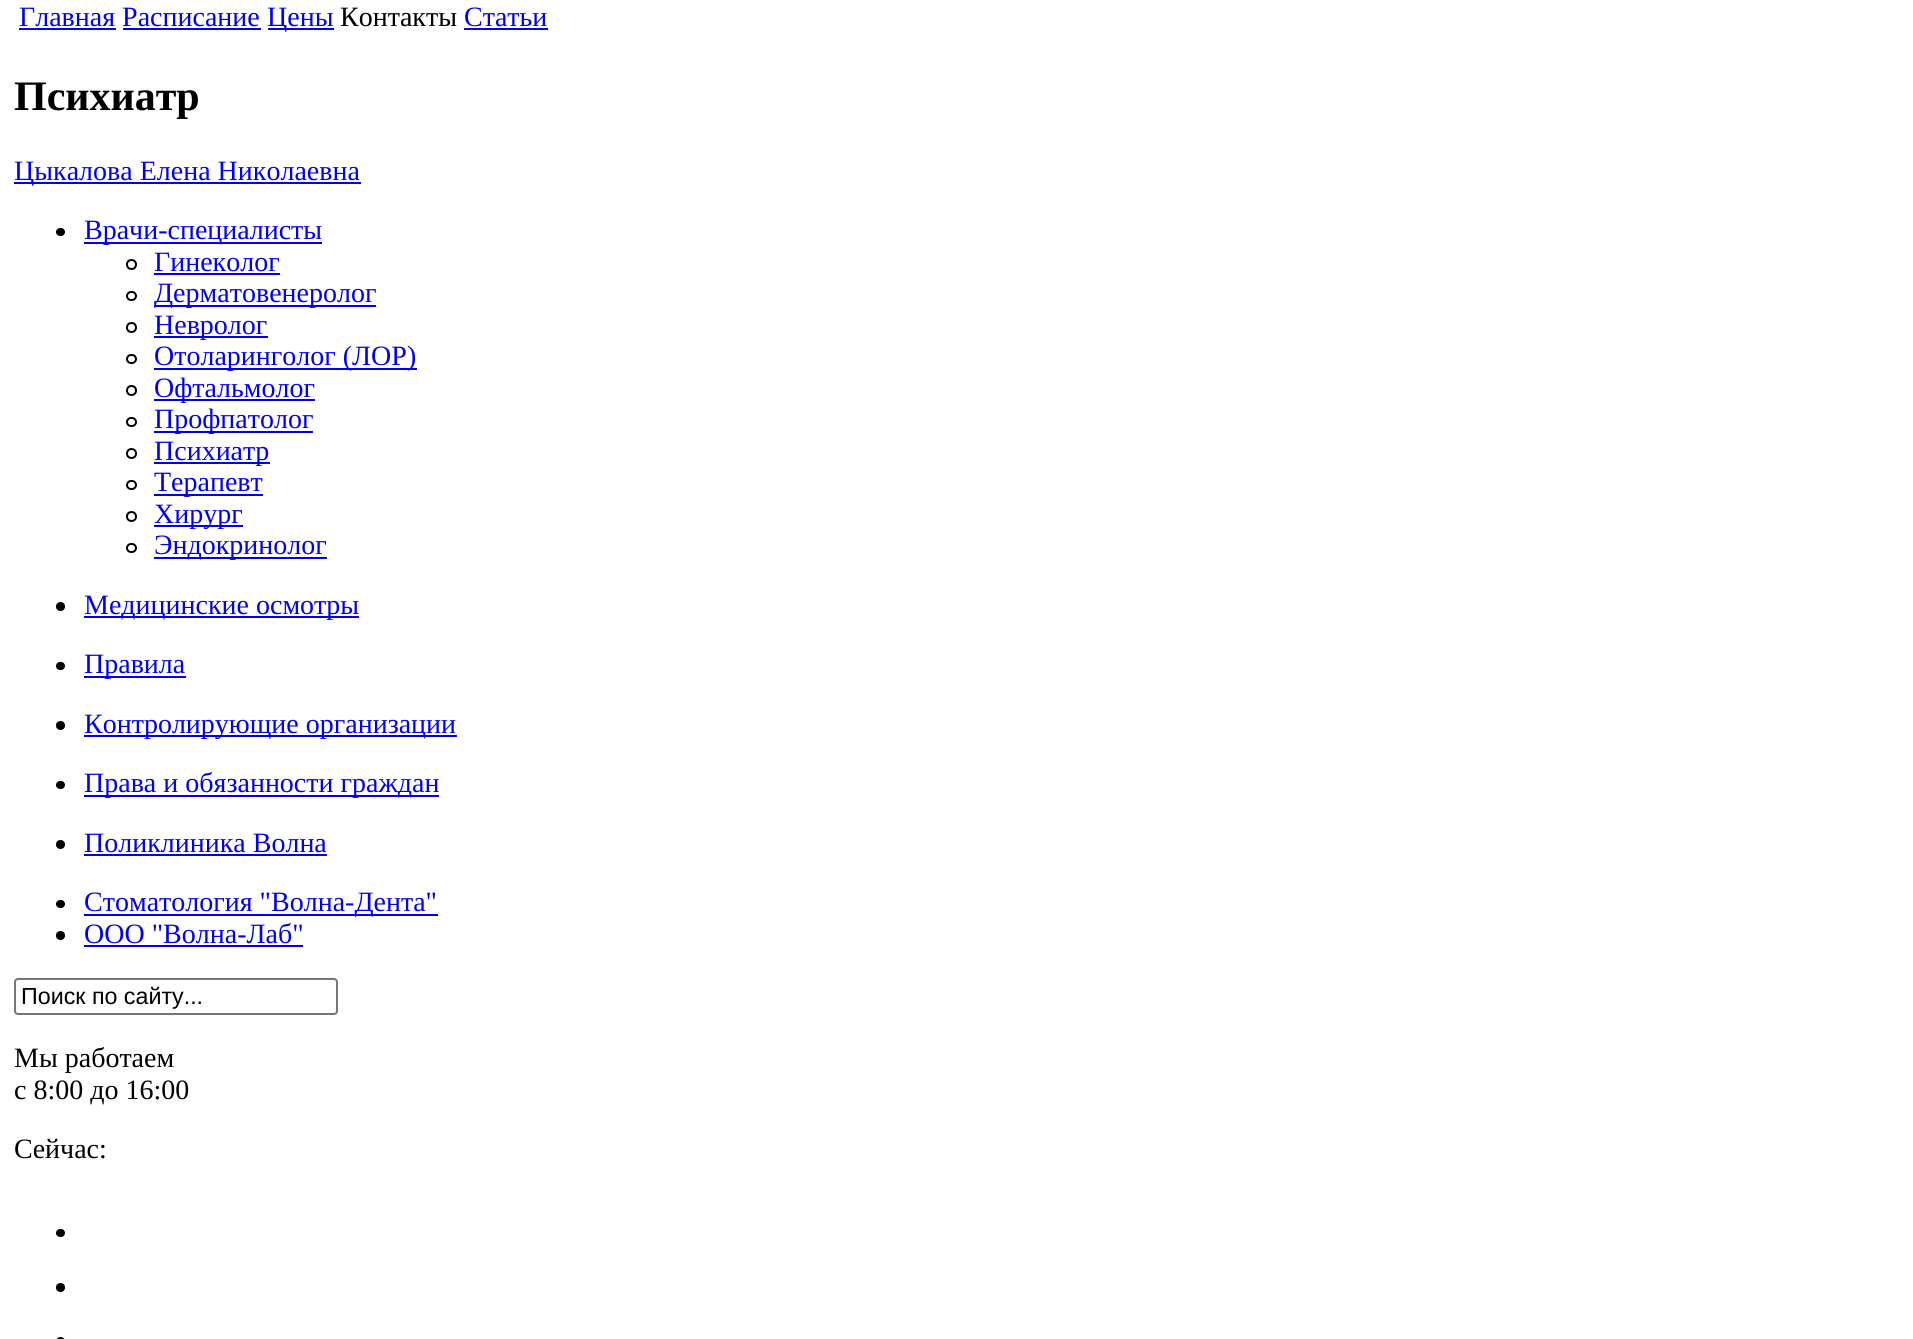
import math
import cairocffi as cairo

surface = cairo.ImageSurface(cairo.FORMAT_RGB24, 1913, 1339)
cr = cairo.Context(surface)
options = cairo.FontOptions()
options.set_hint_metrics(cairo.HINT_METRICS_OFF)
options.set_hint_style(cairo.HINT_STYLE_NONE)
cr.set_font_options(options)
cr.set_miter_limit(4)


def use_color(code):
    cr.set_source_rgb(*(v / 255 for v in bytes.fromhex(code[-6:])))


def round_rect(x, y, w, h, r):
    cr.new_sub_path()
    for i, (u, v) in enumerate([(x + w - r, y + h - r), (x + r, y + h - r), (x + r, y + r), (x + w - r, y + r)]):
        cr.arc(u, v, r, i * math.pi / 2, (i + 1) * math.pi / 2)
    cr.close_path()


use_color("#ffffff")
cr.paint()
cr.select_font_face("Liberation Serif")
cr.set_font_size(28)
use_color("#0000ee")
cr.move_to(19, 26)
cr.show_text("Главная Расписание")
cr.rectangle(19, 28, 97, 2)
cr.fill()
cr.rectangle(268, 28, 66, 2)
cr.fill()
cr.move_to(267, 26)
cr.show_text("Цены")
use_color("#000000")
cr.move_to(340, 26)
cr.show_text("Контакты")
use_color("#0000ee")
cr.move_to(464, 26)
cr.show_text("Статьи")
cr.rectangle(464, 28, 84, 2)
cr.fill()
cr.rectangle(123, 28, 138, 2)
cr.fill()
cr.select_font_face("Liberation Serif", cairo.FONT_SLANT_NORMAL, cairo.FONT_WEIGHT_BOLD)
cr.set_font_size(42)
use_color("#000000")
cr.move_to(14, 110)
cr.show_text("Психиатр")
use_color("#0000ee")
cr.rectangle(14, 182, 347, 2)
cr.fill()
cr.select_font_face("Liberation Serif")
cr.set_font_size(28)
cr.move_to(14, 180)
cr.show_text("Цыкалова Елена Николаевна")
use_color("#000000")
round_rect(56, 228, 9, 8, 4)
cr.fill()
use_color("#0000ee")
cr.rectangle(84, 242, 238, 2)
cr.fill()
cr.move_to(84, 239)
cr.show_text("Врачи-специалисты")
cr.new_path()
cr.arc(131.5, 264.5, 4.5, 0, 2 * math.pi)
use_color("#000000")
cr.stroke()
use_color("#0000ee")
cr.move_to(154, 271)
cr.show_text("Гинеколог")
cr.rectangle(154, 273, 126, 2)
cr.fill()
round_rect(127, 292, 9, 8, 4)
use_color("#000000")
cr.stroke()
use_color("#0000ee")
cr.rectangle(154, 305, 222, 2)
cr.fill()
cr.move_to(154, 302)
cr.show_text("Дерматовенеролог")
cr.new_path()
cr.arc(131.5, 327.5, 4.5, 0, 2 * math.pi)
use_color("#000000")
cr.stroke()
use_color("#0000ee")
cr.rectangle(154, 336, 114, 2)
cr.fill()
cr.move_to(154, 334)
cr.show_text("Невролог")
round_rect(127, 355, 9, 8, 4)
use_color("#000000")
cr.stroke()
use_color("#0000ee")
cr.rectangle(154, 368, 263, 2)
cr.fill()
cr.move_to(154, 365)
cr.show_text("Отоларинголог (ЛОР)")
cr.new_path()
cr.arc(131.5, 390.5, 4.5, 0, 2 * math.pi)
use_color("#000000")
cr.stroke()
use_color("#0000ee")
cr.rectangle(154, 399, 161, 2)
cr.fill()
cr.move_to(154, 397)
cr.show_text("Офтальмолог")
round_rect(127, 418, 9, 8, 4)
use_color("#000000")
cr.stroke()
use_color("#0000ee")
cr.rectangle(154, 431, 159, 2)
cr.fill()
cr.move_to(154, 428)
cr.show_text("Профпатолог")
cr.new_path()
cr.arc(131.5, 453.5, 4.5, 0, 2 * math.pi)
use_color("#000000")
cr.stroke()
use_color("#0000ee")
cr.rectangle(154, 462, 116, 2)
cr.fill()
cr.move_to(154, 460)
cr.show_text("Психиатр")
round_rect(127, 481, 9, 8, 4)
use_color("#000000")
cr.stroke()
use_color("#0000ee")
cr.rectangle(154, 494, 109, 2)
cr.fill()
cr.move_to(154, 491)
cr.show_text("Терапевт")
cr.new_path()
cr.arc(131.5, 516.5, 4.5, 0, 2 * math.pi)
use_color("#000000")
cr.stroke()
use_color("#0000ee")
cr.rectangle(154, 525, 89, 2)
cr.fill()
cr.move_to(154, 523)
cr.show_text("Хирург")
round_rect(127, 544, 9, 8, 4)
use_color("#000000")
cr.stroke()
use_color("#0000ee")
cr.rectangle(154, 557, 173, 2)
cr.fill()
cr.move_to(154, 554)
cr.show_text("Эндокринолог")
use_color("#000000")
cr.new_path()
cr.arc(60.5, 606.5, 4.5, 0, 2 * math.pi)
cr.fill()
use_color("#0000ee")
cr.rectangle(84, 616, 275, 2)
cr.fill()
cr.move_to(84, 614)
cr.show_text("Медицинские осмотры")
use_color("#000000")
round_rect(56, 662, 9, 8, 4)
cr.fill()
use_color("#0000ee")
cr.rectangle(84, 676, 102, 2)
cr.fill()
cr.move_to(84, 673)
cr.show_text("Правила")
use_color("#000000")
cr.new_path()
cr.arc(60.5, 725.5, 4.5, 0, 2 * math.pi)
cr.fill()
use_color("#0000ee")
cr.rectangle(84, 735, 373, 2)
cr.fill()
cr.move_to(84, 733)
cr.show_text("Контролирующие организации")
use_color("#000000")
round_rect(56, 781, 9, 8, 4)
cr.fill()
use_color("#0000ee")
cr.rectangle(84, 795, 355, 2)
cr.fill()
cr.move_to(84, 792)
cr.show_text("Права и обязанности граждан")
use_color("#000000")
cr.new_path()
cr.arc(60.5, 844.5, 4.5, 0, 2 * math.pi)
cr.fill()
use_color("#0000ee")
cr.move_to(84, 852)
cr.show_text("Поликлиника Волна")
cr.rectangle(84, 854, 243, 2)
cr.fill()
use_color("#000000")
round_rect(56, 900, 9, 8, 4)
cr.fill()
use_color("#0000ee")
cr.rectangle(84, 914, 354, 2)
cr.fill()
cr.move_to(84, 911)
cr.show_text("Стоматология \"Волна-Дента\"")
use_color("#000000")
cr.new_path()
cr.arc(60.5, 935.5, 4.5, 0, 2 * math.pi)
cr.fill()
use_color("#0000ee")
cr.move_to(84, 943)
cr.show_text("ООО \"Волна-Лаб\"")
cr.rectangle(84, 945, 219, 2)
cr.fill()
round_rect(15, 979, 322, 35, 3)
use_color("#767676")
cr.stroke()
cr.select_font_face("Liberation Sans")
cr.set_font_size(23.25)
use_color("#000000")
cr.move_to(21, 1004)
cr.show_text("Поиск по сайту...")
cr.select_font_face("Liberation Serif")
cr.set_font_size(28)
cr.move_to(14, 1067)
cr.show_text("Мы работаем")
cr.move_to(14, 1099)
cr.show_text("с 8:00 до 16:00")
cr.move_to(14, 1158)
cr.show_text("Сейчас:")
round_rect(56, 1229, 9, 8, 4)
cr.fill()
cr.arc(60.5, 1287.5, 4.5, 0, 2 * math.pi)
cr.fill()
round_rect(56, 1337, 9, 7, 4.5)
cr.fill()
surface.write_to_png("result.png")
